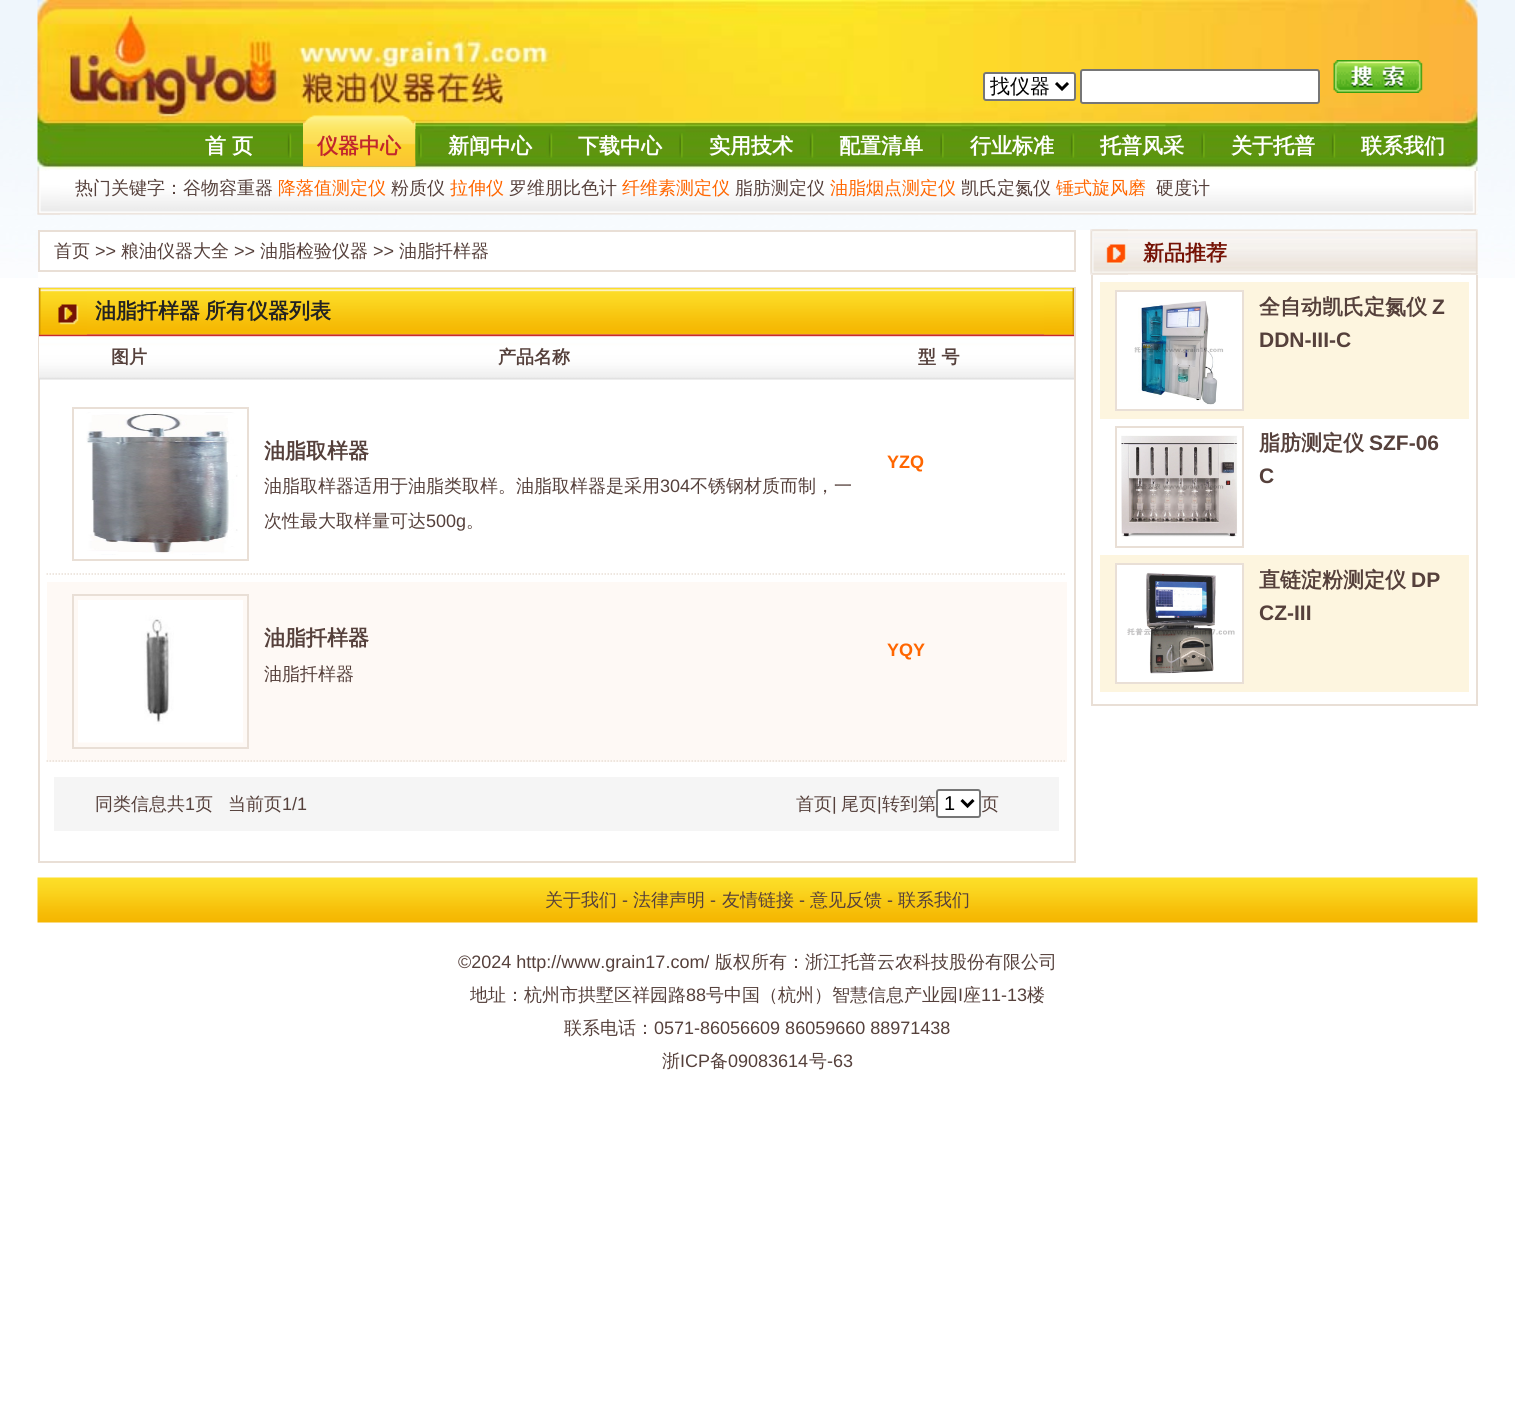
import math
import cairocffi as cairo

surface = cairo.ImageSurface(cairo.FORMAT_RGB24, 1515, 1418)
cr = cairo.Context(surface)
options = cairo.FontOptions()
options.set_hint_metrics(cairo.HINT_METRICS_OFF)
options.set_hint_style(cairo.HINT_STYLE_NONE)
cr.set_font_options(options)
cr.set_miter_limit(4)


def use_color(code):
    cr.set_source_rgb(*(v / 255 for v in bytes.fromhex(code[-6:])))


def round_rect(x, y, w, h, r):
    cr.new_sub_path()
    for i, (u, v) in enumerate([(x + w - r, y + h - r), (x + r, y + h - r), (x + r, y + r), (x + w - r, y + r)]):
        cr.arc(u, v, r, i * math.pi / 2, (i + 1) * math.pi / 2)
    cr.close_path()


def picture(path, x, y, w, h):
    cr.save()
    cr.set_source_surface(cairo.ImageSurface.create_from_png(path), x, y)
    cr.rectangle(x, y, w, h)
    cr.fill()
    cr.restore()


use_color("#ffffff")
cr.paint()
picture("img1.png", 0, 0, 1515, 278)
picture("img2.png", 37, 0, 1441, 171)
use_color("#ffffff")
round_rect(984, 73, 91, 27, 2)
cr.fill_preserve()
use_color("#767676")
cr.stroke()
cr.new_path()
cr.move_to(1056, 83)
cr.line_to(1062, 89)
cr.line_to(1068, 83)
use_color("#000000")
cr.set_line_width(3)
cr.stroke()
cr.select_font_face("WenQuanYi Zen Hei Medium")
cr.set_font_size(20)
cr.move_to(990, 93)
cr.show_text("找仪器")
use_color("#ffffff")
round_rect(1081, 70, 238, 33, 2)
cr.fill_preserve()
use_color("#767676")
cr.set_line_width(2)
cr.stroke()
picture("img3.png", 1333, 60, 90, 33)
cr.select_font_face("WenQuanYi Zen Hei", cairo.FONT_SLANT_NORMAL, cairo.FONT_WEIGHT_BOLD)
cr.set_font_size(21)
use_color("#ffffff")
cr.move_to(205, 153)
cr.show_text("首")
cr.move_to(232, 153)
cr.show_text("页")
picture("img4.png", 287, 133, 5, 25)
picture("img5.png", 303, 115, 113, 52)
use_color("#c1272d")
cr.move_to(317, 153)
cr.show_text("仪器中心")
picture("img6.png", 415, 129, 9, 32)
use_color("#ffffff")
cr.move_to(448, 153)
cr.show_text("新闻中心")
picture("img7.png", 546, 133, 7, 25)
cr.move_to(578, 153)
cr.show_text("下载中心")
picture("img8.png", 679, 133, 4, 25)
cr.move_to(709, 153)
cr.show_text("实用技术")
picture("img9.png", 807, 129, 9, 29)
cr.move_to(839, 153)
cr.show_text("配置清单")
picture("img10.png", 940, 133, 4, 25)
cr.move_to(970, 153)
cr.show_text("行业标准")
picture("img11.png", 1069, 133, 8, 25)
cr.move_to(1100, 153)
cr.show_text("托普风采")
picture("img12.png", 1199, 131, 8, 27)
cr.move_to(1231, 153)
cr.show_text("关于托普")
picture("img13.png", 1329, 130, 7, 28)
cr.move_to(1361, 153)
cr.show_text("联系我们")
picture("img14.png", 37, 171, 1441, 44)
picture("img15.png", 37, 171, 23, 44)
cr.select_font_face("WenQuanYi Zen Hei Medium")
cr.set_font_size(18)
use_color("#55403b")
cr.move_to(75, 194)
cr.show_text("热门关键字：谷物容重器")
use_color("#ff6600")
cr.move_to(278, 194)
cr.show_text("降落值测定仪")
use_color("#55403b")
cr.move_to(391, 194)
cr.show_text("粉质仪")
use_color("#ff6600")
cr.move_to(450, 194)
cr.show_text("拉伸仪")
use_color("#55403b")
cr.move_to(509, 194)
cr.show_text("罗维朋比色计")
use_color("#ff6600")
cr.move_to(622, 194)
cr.show_text("纤维素测定仪")
use_color("#55403b")
cr.move_to(735, 194)
cr.show_text("脂肪测定仪")
use_color("#ff6600")
cr.move_to(830, 194)
cr.show_text("油脂烟点测定仪")
use_color("#55403b")
cr.move_to(961, 194)
cr.show_text("凯氏定氮仪")
use_color("#ff6600")
cr.move_to(1056, 194)
cr.show_text("锤式旋风磨")
use_color("#55403b")
cr.move_to(1156, 194)
cr.show_text("硬度计")
picture("img16.png", 1464, 171, 14, 44)
use_color("#ffffff")
cr.rectangle(38, 230, 1440, 48)
cr.fill()
cr.rectangle(39, 231, 1036, 40)
use_color("#e9dfd6")
cr.stroke()
use_color("#55403b")
cr.move_to(54, 257)
cr.show_text("首页")
cr.select_font_face("Liberation Sans")
cr.move_to(95, 257)
cr.show_text(">>")
cr.select_font_face("WenQuanYi Zen Hei Medium")
cr.move_to(121, 257)
cr.show_text("粮油仪器大全")
cr.select_font_face("Liberation Sans")
cr.move_to(234, 257)
cr.show_text(">>")
cr.select_font_face("WenQuanYi Zen Hei Medium")
cr.move_to(260, 257)
cr.show_text("油脂检验仪器")
cr.select_font_face("Liberation Sans")
cr.move_to(373, 257)
cr.show_text(">>")
cr.select_font_face("WenQuanYi Zen Hei Medium")
cr.move_to(399, 257)
cr.show_text("油脂扦样器")
cr.rectangle(39, 288, 1036, 574)
use_color("#e9dfd6")
cr.stroke()
picture("img17.png", 39, 288, 1035, 47)
picture("img20.png", 39, 334, 1035, 46)
picture("img18.png", 39, 288, 48, 47)
cr.select_font_face("WenQuanYi Zen Hei", cairo.FONT_SLANT_NORMAL, cairo.FONT_WEIGHT_BOLD)
cr.set_font_size(21)
use_color("#222222")
cr.move_to(95, 318)
cr.show_text("油脂扦样器")
cr.move_to(205, 318)
cr.show_text("所有仪器列表")
picture("img19.png", 1044, 288, 30, 47)
cr.set_font_size(18)
use_color("#55403b")
cr.move_to(111, 363)
cr.show_text("图片")
cr.move_to(498, 363)
cr.show_text("产品名称")
cr.move_to(918, 363)
cr.show_text("型 号")
cr.new_path()
cr.move_to(46.5, 574)
cr.line_to(1066.5, 574)
use_color("#e9dfd6")
cr.set_line_width(1.5)
cr.set_dash([1.5, 1.5])
cr.stroke()
cr.rectangle(73, 408, 175, 152)
cr.set_line_width(2)
cr.set_dash([])
cr.stroke()
picture("img21.png", 86, 412, 152, 143)
cr.set_font_size(21)
use_color("#55403b")
cr.move_to(264, 458)
cr.show_text("油脂取样器")
cr.select_font_face("WenQuanYi Zen Hei Medium")
cr.set_font_size(18)
cr.move_to(264, 492)
cr.show_text("油脂取样器适用于油脂类取样。油脂取样器是采用")
cr.select_font_face("Liberation Sans")
cr.move_to(660, 492)
cr.show_text("304")
cr.select_font_face("WenQuanYi Zen Hei Medium")
cr.move_to(690, 492)
cr.show_text("不锈钢材质而制，一")
cr.move_to(264, 527)
cr.show_text("次性最大取样量可达")
cr.select_font_face("Liberation Sans")
cr.move_to(426, 527)
cr.show_text("500g")
cr.select_font_face("WenQuanYi Zen Hei Medium")
cr.move_to(466, 527)
cr.show_text("。")
cr.select_font_face("Liberation Sans", cairo.FONT_SLANT_NORMAL, cairo.FONT_WEIGHT_BOLD)
use_color("#ff6600")
cr.move_to(887, 468)
cr.show_text("YZQ")
use_color("#fef9f5")
cr.rectangle(47, 582, 1020, 180)
cr.fill()
cr.new_path()
cr.move_to(46.5, 761)
cr.line_to(1066.5, 761)
use_color("#e9dfd6")
cr.set_line_width(1.5)
cr.set_dash([1.5, 1.5])
cr.stroke()
cr.rectangle(73, 595, 175, 153)
cr.set_line_width(2)
cr.set_dash([])
cr.stroke()
picture("img22.png", 78, 600, 165, 143)
cr.select_font_face("WenQuanYi Zen Hei", cairo.FONT_SLANT_NORMAL, cairo.FONT_WEIGHT_BOLD)
cr.set_font_size(21)
use_color("#55403b")
cr.move_to(264, 645)
cr.show_text("油脂扦样器")
cr.select_font_face("WenQuanYi Zen Hei Medium")
cr.set_font_size(18)
cr.move_to(264, 680)
cr.show_text("油脂扦样器")
cr.select_font_face("Liberation Sans", cairo.FONT_SLANT_NORMAL, cairo.FONT_WEIGHT_BOLD)
use_color("#ff6600")
cr.move_to(887, 656)
cr.show_text("YQY")
use_color("#f5f5f5")
cr.rectangle(54, 777, 1005, 54)
cr.fill()
cr.select_font_face("WenQuanYi Zen Hei Medium")
use_color("#55403b")
cr.move_to(95, 810)
cr.show_text("同类信息共")
cr.select_font_face("Liberation Sans")
cr.move_to(185, 810)
cr.show_text("1")
cr.select_font_face("WenQuanYi Zen Hei Medium")
cr.move_to(195, 810)
cr.show_text("页")
cr.move_to(228, 810)
cr.show_text("当前页")
cr.select_font_face("Liberation Sans")
cr.move_to(282, 810)
cr.show_text("1/1")
cr.select_font_face("WenQuanYi Zen Hei Medium")
cr.move_to(796, 810)
cr.show_text("首页")
cr.select_font_face("Liberation Sans")
cr.move_to(832, 810)
cr.show_text("|")
cr.select_font_face("WenQuanYi Zen Hei Medium")
cr.move_to(841, 810)
cr.show_text("尾页")
cr.select_font_face("Liberation Sans")
cr.move_to(877, 810)
cr.show_text("|")
cr.select_font_face("WenQuanYi Zen Hei Medium")
cr.move_to(882, 810)
cr.show_text("转到第")
use_color("#ffffff")
round_rect(937, 790, 43, 27, 2)
cr.fill_preserve()
use_color("#767676")
cr.stroke()
cr.new_path()
cr.move_to(961.5, 800)
cr.line_to(967.5, 806)
cr.line_to(973.5, 800)
use_color("#000000")
cr.set_line_width(3)
cr.stroke()
cr.select_font_face("Liberation Sans")
cr.set_font_size(20)
cr.move_to(944, 810)
cr.show_text("1")
cr.select_font_face("WenQuanYi Zen Hei Medium")
cr.set_font_size(18)
use_color("#55403b")
cr.move_to(981, 810)
cr.show_text("页")
picture("img23.png", 1090, 229, 388, 46)
picture("img24.png", 1090, 229, 38, 46)
cr.select_font_face("WenQuanYi Zen Hei", cairo.FONT_SLANT_NORMAL, cairo.FONT_WEIGHT_BOLD)
cr.set_font_size(21)
use_color("#751205")
cr.move_to(1143, 260)
cr.show_text("新品推荐")
picture("img25.png", 1461, 229, 17, 46)
use_color("#e9dfd6")
cr.rectangle(1476, 275, 2, 430)
cr.fill()
cr.rectangle(1091, 704, 387, 2)
cr.fill()
cr.rectangle(1091, 275, 2, 430)
cr.fill()
use_color("#fdf5df")
cr.rectangle(1100, 282, 369, 137)
cr.fill()
use_color("#ffffff")
cr.rectangle(1116, 291, 127, 119)
cr.fill_preserve()
use_color("#e9dfd6")
cr.set_line_width(2)
cr.stroke()
picture("img26.png", 1134, 301, 90, 104)
use_color("#55403b")
cr.move_to(1259, 314)
cr.show_text("全自动凯氏定氮仪")
cr.select_font_face("Liberation Sans", cairo.FONT_SLANT_NORMAL, cairo.FONT_WEIGHT_BOLD)
cr.move_to(1432, 314)
cr.show_text("Z")
cr.move_to(1259, 347)
cr.show_text("DDN-III-C")
cr.rectangle(1116, 427, 127, 120)
use_color("#e9dfd6")
cr.stroke()
picture("img27.png", 1121, 435, 117, 102)
cr.select_font_face("WenQuanYi Zen Hei", cairo.FONT_SLANT_NORMAL, cairo.FONT_WEIGHT_BOLD)
use_color("#55403b")
cr.move_to(1259, 450)
cr.show_text("脂肪测定仪")
cr.select_font_face("Liberation Sans", cairo.FONT_SLANT_NORMAL, cairo.FONT_WEIGHT_BOLD)
cr.move_to(1369, 450)
cr.show_text("SZF-06")
cr.move_to(1259, 483)
cr.show_text("C")
use_color("#fdf5df")
cr.rectangle(1100, 555, 369, 137)
cr.fill()
use_color("#ffffff")
cr.rectangle(1116, 564, 127, 119)
cr.fill_preserve()
use_color("#e9dfd6")
cr.stroke()
picture("img28.png", 1127, 572, 108, 102)
cr.select_font_face("WenQuanYi Zen Hei", cairo.FONT_SLANT_NORMAL, cairo.FONT_WEIGHT_BOLD)
use_color("#55403b")
cr.move_to(1259, 587)
cr.show_text("直链淀粉测定仪")
cr.select_font_face("Liberation Sans", cairo.FONT_SLANT_NORMAL, cairo.FONT_WEIGHT_BOLD)
cr.move_to(1411, 587)
cr.show_text("DP")
cr.move_to(1259, 620)
cr.show_text("CZ-III")
picture("img29.png", 37, 877, 1441, 46)
cr.select_font_face("WenQuanYi Zen Hei Medium")
cr.set_font_size(18)
cr.move_to(545, 906)
cr.show_text("关于我们")
cr.select_font_face("Liberation Sans")
cr.move_to(622, 906)
cr.show_text("-")
cr.select_font_face("WenQuanYi Zen Hei Medium")
cr.move_to(633, 906)
cr.show_text("法律声明")
cr.select_font_face("Liberation Sans")
cr.move_to(710, 906)
cr.show_text("-")
cr.select_font_face("WenQuanYi Zen Hei Medium")
cr.move_to(722, 906)
cr.show_text("友情链接")
cr.select_font_face("Liberation Sans")
cr.move_to(799, 906)
cr.show_text("-")
cr.select_font_face("WenQuanYi Zen Hei Medium")
cr.move_to(810, 906)
cr.show_text("意见反馈")
cr.select_font_face("Liberation Sans")
cr.move_to(887, 906)
cr.show_text("-")
cr.select_font_face("WenQuanYi Zen Hei Medium")
cr.move_to(898, 906)
cr.show_text("联系我们")
cr.select_font_face("Liberation Sans")
cr.move_to(458, 968)
cr.show_text("©2024 http://www.grain17.com/")
cr.select_font_face("WenQuanYi Zen Hei Medium")
cr.move_to(715, 968)
cr.show_text("版权所有：浙江托普云农科技股份有限公司")
cr.move_to(470, 1001)
cr.show_text("地址：杭州市拱墅区祥园路")
cr.select_font_face("Liberation Sans")
cr.move_to(686, 1001)
cr.show_text("88")
cr.select_font_face("WenQuanYi Zen Hei Medium")
cr.move_to(706, 1001)
cr.show_text("号中国（杭州）智慧信息产业园")
cr.select_font_face("Liberation Sans")
cr.move_to(958, 1001)
cr.show_text("I")
cr.select_font_face("WenQuanYi Zen Hei Medium")
cr.move_to(963, 1001)
cr.show_text("座")
cr.select_font_face("Liberation Sans")
cr.move_to(981, 1001)
cr.show_text("11-13")
cr.select_font_face("WenQuanYi Zen Hei Medium")
cr.move_to(1027, 1001)
cr.show_text("楼")
cr.move_to(564, 1034)
cr.show_text("联系电话：")
cr.select_font_face("Liberation Sans")
cr.move_to(654, 1034)
cr.show_text("0571-86056609 86059660 88971438")
cr.select_font_face("WenQuanYi Zen Hei Medium")
cr.move_to(662, 1067)
cr.show_text("浙")
cr.select_font_face("Liberation Sans")
cr.move_to(680, 1067)
cr.show_text("ICP")
cr.select_font_face("WenQuanYi Zen Hei Medium")
cr.move_to(710, 1067)
cr.show_text("备")
cr.select_font_face("Liberation Sans")
cr.move_to(728, 1067)
cr.show_text("09083614")
cr.select_font_face("WenQuanYi Zen Hei Medium")
cr.move_to(809, 1067)
cr.show_text("号")
cr.select_font_face("Liberation Sans")
cr.move_to(827, 1067)
cr.show_text("-63")
surface.write_to_png("result.png")
